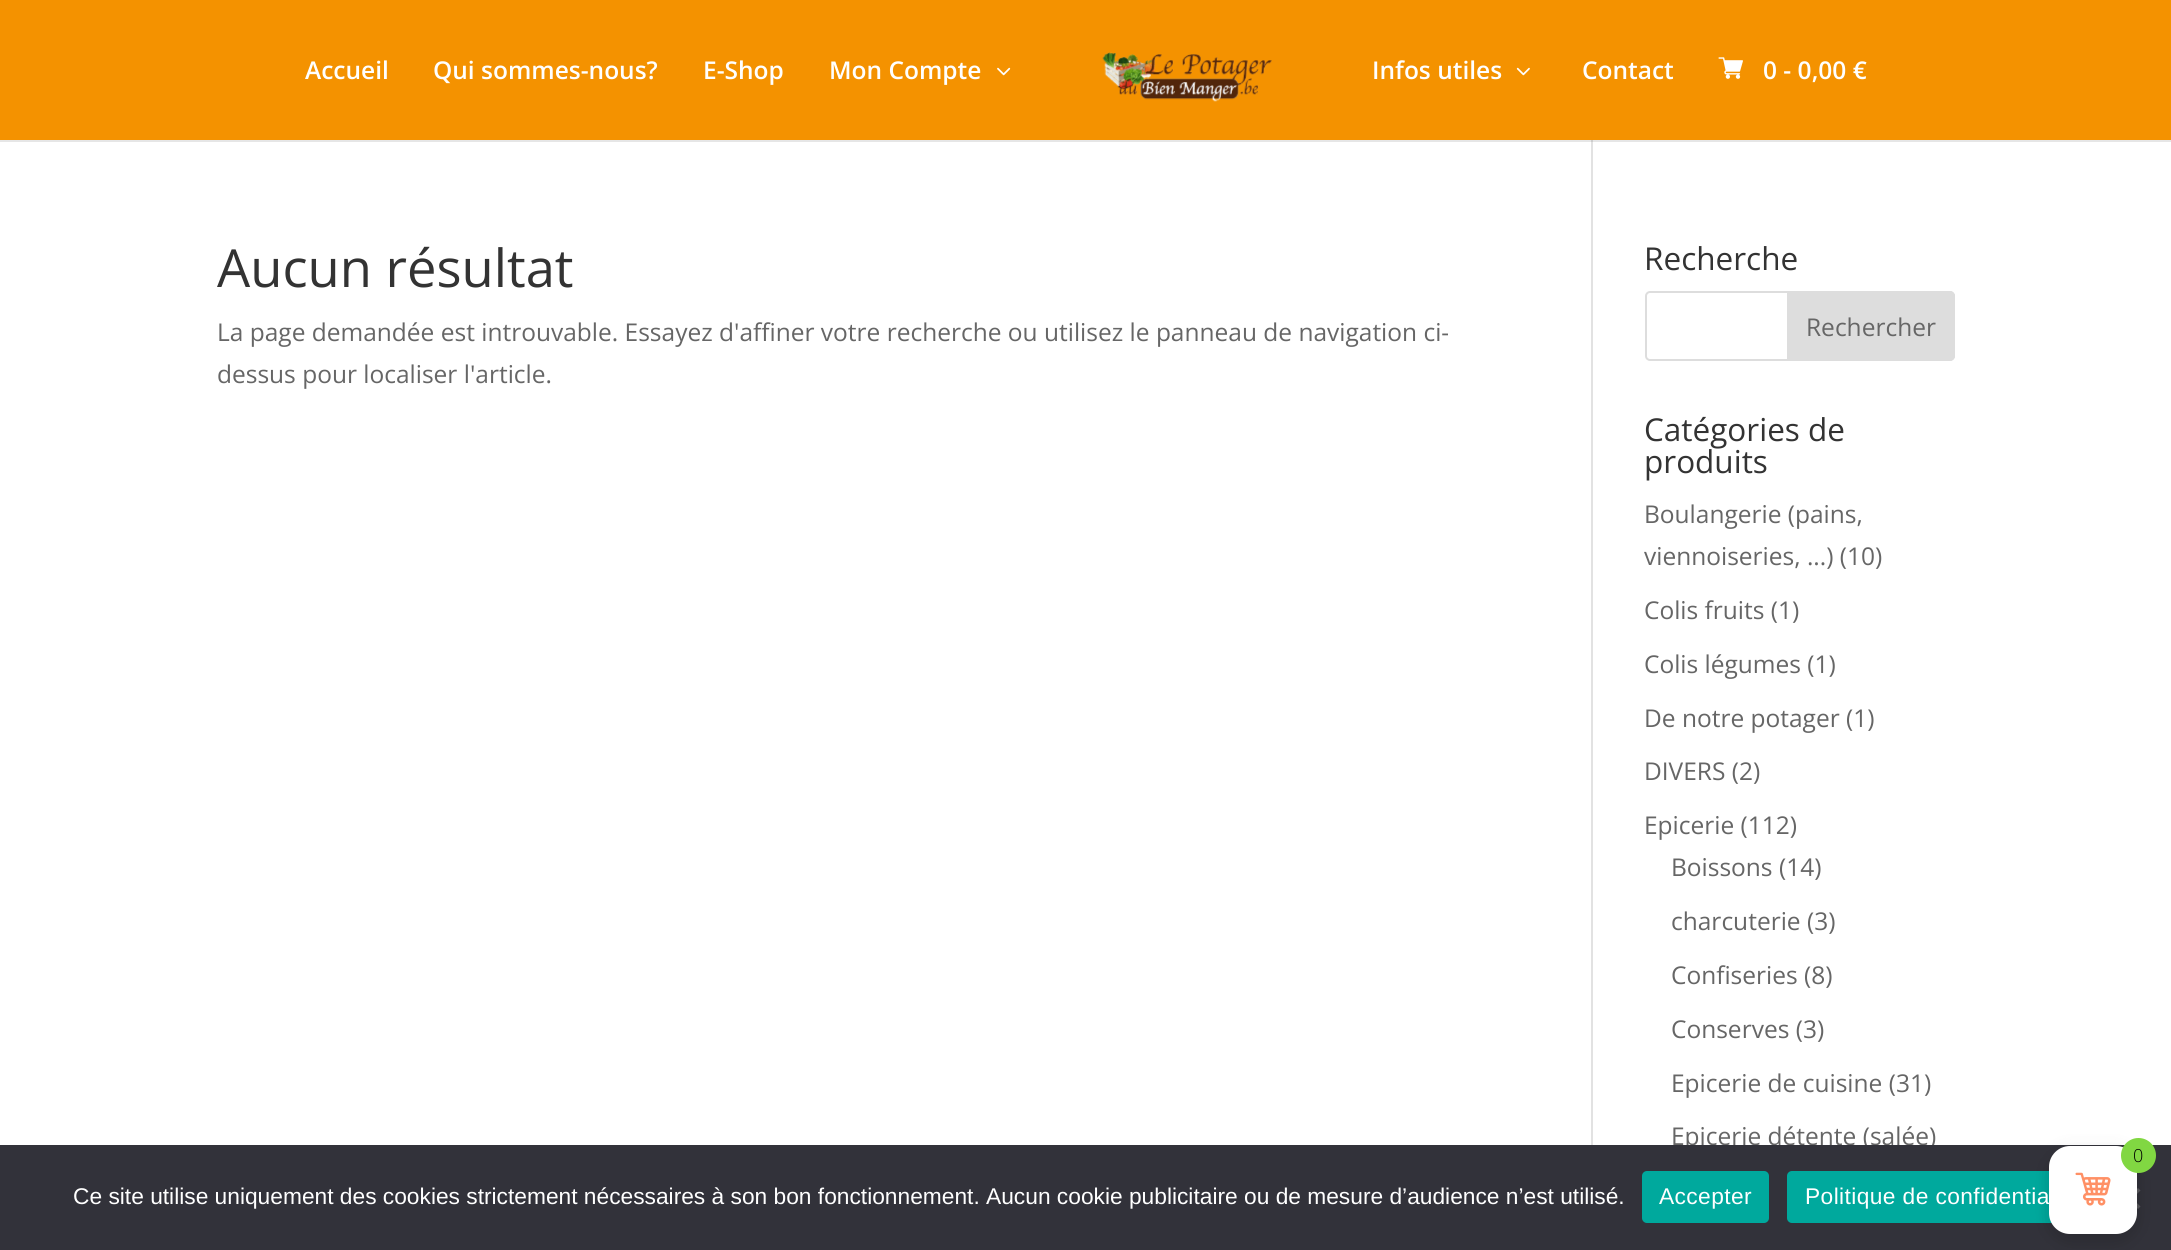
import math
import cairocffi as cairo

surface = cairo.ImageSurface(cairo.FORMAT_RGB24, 2171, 1250)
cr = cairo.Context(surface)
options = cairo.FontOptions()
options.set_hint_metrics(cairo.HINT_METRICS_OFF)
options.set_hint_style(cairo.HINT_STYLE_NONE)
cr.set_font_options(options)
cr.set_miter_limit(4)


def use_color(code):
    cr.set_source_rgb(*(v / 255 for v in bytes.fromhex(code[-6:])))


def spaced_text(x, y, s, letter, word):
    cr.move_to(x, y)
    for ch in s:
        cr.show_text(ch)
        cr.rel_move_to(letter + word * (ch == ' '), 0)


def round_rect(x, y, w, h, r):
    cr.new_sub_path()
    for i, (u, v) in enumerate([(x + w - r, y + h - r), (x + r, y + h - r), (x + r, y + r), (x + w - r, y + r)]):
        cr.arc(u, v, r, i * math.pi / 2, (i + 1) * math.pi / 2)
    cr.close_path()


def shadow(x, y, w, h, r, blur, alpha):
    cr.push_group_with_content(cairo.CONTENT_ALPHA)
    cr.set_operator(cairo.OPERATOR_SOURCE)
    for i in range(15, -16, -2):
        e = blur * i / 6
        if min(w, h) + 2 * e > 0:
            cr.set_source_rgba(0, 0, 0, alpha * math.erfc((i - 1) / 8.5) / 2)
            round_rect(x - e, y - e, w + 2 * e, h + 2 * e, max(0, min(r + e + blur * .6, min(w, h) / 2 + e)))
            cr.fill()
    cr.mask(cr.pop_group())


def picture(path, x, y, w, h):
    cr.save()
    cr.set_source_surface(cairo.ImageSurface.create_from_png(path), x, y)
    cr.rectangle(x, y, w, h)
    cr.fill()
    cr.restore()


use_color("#ffffff")
cr.paint()
use_color("#e2e2e2")
cr.rectangle(1591, 140, 2, 1005)
cr.fill()
cr.set_source_rgba(0, 0, 0, 0.1)
cr.new_path()
cr.move_to(0, 140)
cr.line_to(0, 142)
cr.line_to(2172, 142)
cr.line_to(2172, 2)
cr.line_to(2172, 140)
cr.close_path()
cr.fill()
use_color("#f49200")
cr.rectangle(0, 0, 2171, 140)
cr.fill()
cr.select_font_face("Open Sans SemiBold")
cr.set_font_size(24.5)
use_color("#ffffff")
cr.move_to(305, 79)
cr.show_text("Accueil")
cr.move_to(433, 79)
cr.show_text("Qui sommes-nous?")
cr.move_to(703, 79)
cr.show_text("E-Shop")
cr.move_to(829, 79)
cr.show_text("Mon Compte")
picture("img1.png", 997, 67, 14, 9)
picture("img2.png", 1102, 52, 170, 50)
cr.move_to(1372, 79)
cr.show_text("Infos utiles")
picture("img3.png", 1516, 67, 14, 9)
cr.move_to(1582, 79)
cr.show_text("Contact")
picture("img4.png", 1718, 57, 25, 22)
cr.move_to(1763, 79)
cr.show_text("0 - 0,00 €")
cr.select_font_face("Open Sans")
cr.set_font_size(52.5)
use_color("#333333")
cr.move_to(217, 287)
cr.show_text("Aucun résultat")
cr.set_font_size(24.5)
use_color("#666666")
cr.move_to(217, 341)
cr.show_text("La page demandée est introuvable. Essayez d'affiner votre recherche ou utilisez le panneau de navigation ci-")
cr.move_to(217, 383)
cr.show_text("dessus pour localiser l'article.")
cr.set_font_size(31.5)
use_color("#333333")
cr.move_to(1644, 270)
cr.show_text("Recherche")
round_rect(1646, 292, 308, 68, 4)
use_color("#dddddd")
cr.stroke()
cr.new_path()
cr.move_to(1788, 292)
cr.line_to(1950, 292)
cr.curve_to(1952, 292, 1954, 294, 1954, 296)
cr.line_to(1954, 356)
cr.curve_to(1954, 358, 1952, 360, 1950, 360)
cr.line_to(1788, 360)
cr.close_path()
cr.fill_preserve()
cr.stroke()
cr.set_font_size(24.5)
use_color("#666666")
cr.move_to(1806, 336)
cr.show_text("Rechercher")
cr.set_font_size(31.5)
use_color("#333333")
cr.move_to(1644, 441)
cr.show_text("Catégories de")
cr.move_to(1644, 473)
cr.show_text("produits")
cr.set_font_size(24.5)
use_color("#666666")
cr.move_to(1644, 523)
cr.show_text("Boulangerie (pains,")
cr.move_to(1644, 565)
cr.show_text("viennoiseries, ...) (10)")
cr.move_to(1644, 619)
cr.show_text("Colis fruits (1)")
cr.move_to(1644, 673)
cr.show_text("Colis légumes (1)")
cr.move_to(1644, 727)
cr.show_text("De notre potager (1)")
cr.move_to(1644, 780)
cr.show_text("DIVERS (2)")
cr.move_to(1644, 834)
cr.show_text("Epicerie (112)")
cr.move_to(1671, 876)
cr.show_text("Boissons (14)")
cr.move_to(1671, 930)
cr.show_text("charcuterie (3)")
cr.move_to(1671, 984)
cr.show_text("Confiseries (8)")
cr.move_to(1671, 1038)
cr.show_text("Conserves (3)")
cr.move_to(1671, 1092)
cr.show_text("Epicerie de cuisine (31)")
cr.move_to(1671, 1145)
cr.show_text("Epicerie détente (salée)")
use_color("#32323a")
cr.rectangle(0, 1145, 2171, 105)
cr.fill()
use_color("#00a99d")
round_rect(1787, 1171, 313, 52, 5)
cr.fill()
use_color("#59595d")
cr.new_path()
cr.move_to(2138, 1188)
cr.line_to(2140.5, 1190.5)
cr.line_to(2121.5, 1209)
cr.line_to(2119, 1206.5)
cr.close_path()
cr.fill()
cr.new_path()
cr.move_to(2119, 1190.5)
cr.line_to(2121.5, 1188)
cr.line_to(2140.5, 1206.5)
cr.line_to(2138, 1209)
cr.close_path()
cr.fill()
use_color("#000000")
shadow(2049, 1153, 88, 88, 21, 9, 0.17)
use_color("#ffffff")
round_rect(2049, 1146, 88, 88, 21)
cr.fill()
use_color("#81d742")
cr.arc(2138.5, 1155.5, 17.5, 0, 2 * math.pi)
cr.fill()
cr.select_font_face("Open Sans Light")
cr.set_font_size(18)
use_color("#000000")
cr.move_to(2133, 1162)
cr.show_text("0")
picture("img5.png", 2075, 1172, 36, 34)
cr.select_font_face("Liberation Sans")
cr.set_font_size(22.75)
use_color("#ffffff")
cr.move_to(73, 1204)
cr.show_text("Ce site utilise uniquement des cookies strictement nécessaires à son bon fonctionnement. Aucun cookie publicitaire ou de mesure d’audience n’est utilisé.")
use_color("#00a99d")
round_rect(1642, 1171, 127, 52, 5)
cr.fill()
use_color("#ffffff")
spaced_text(1659, 1204, "Accepter", 0.4, 0)
spaced_text(1805, 1204, "Politique de confidentia", 0.4, 0)
surface.write_to_png("result.png")
